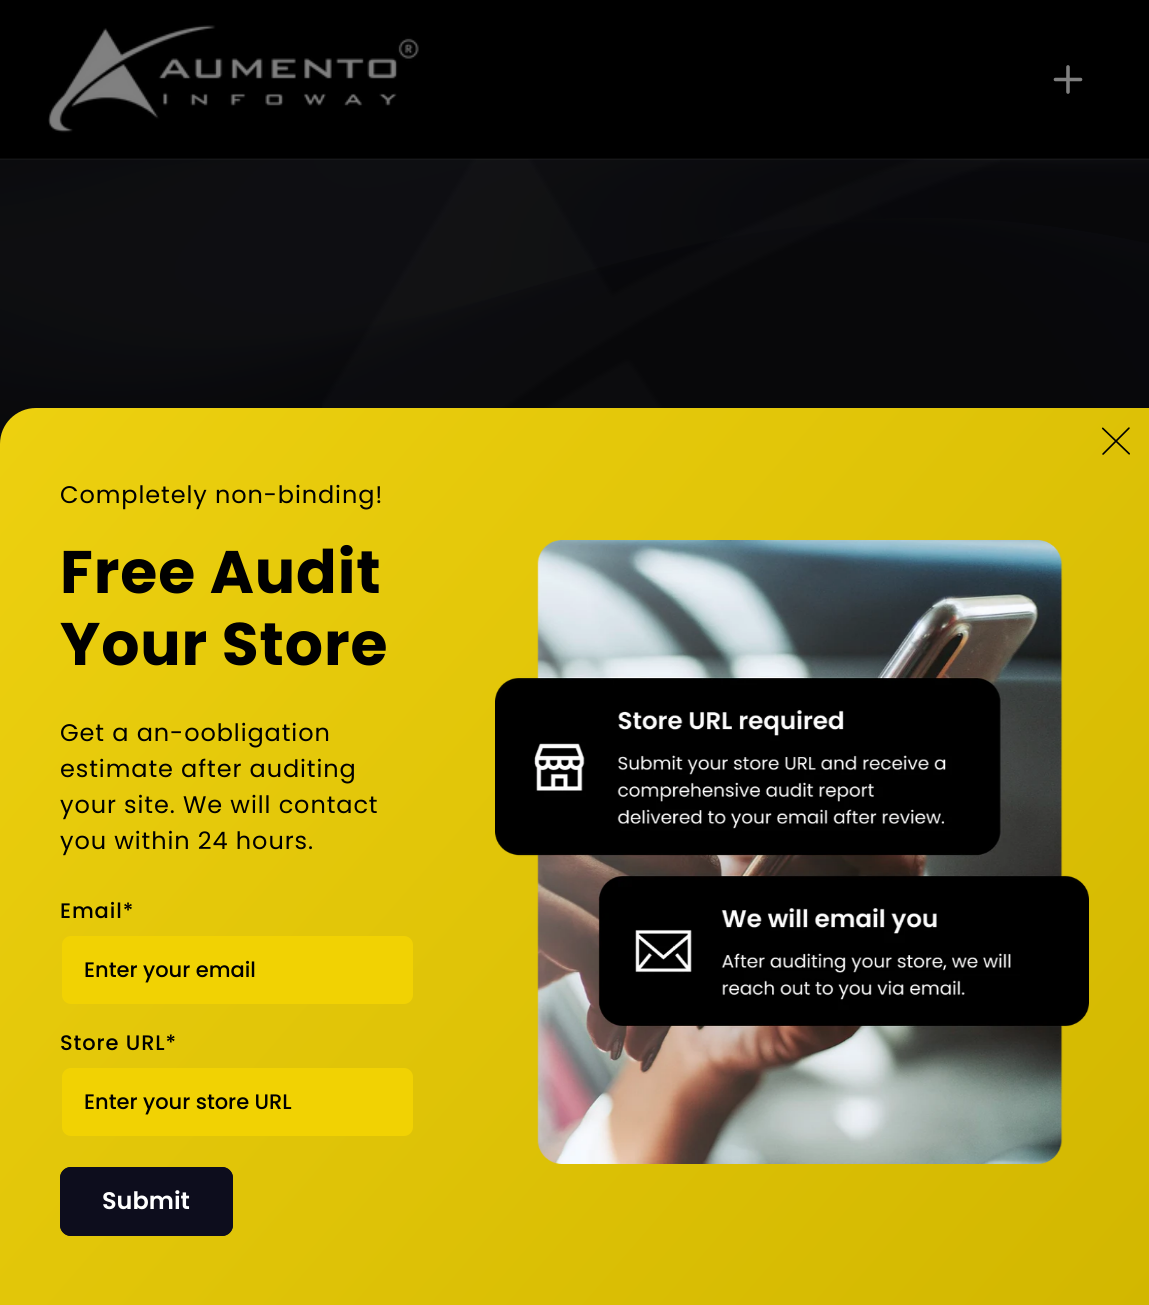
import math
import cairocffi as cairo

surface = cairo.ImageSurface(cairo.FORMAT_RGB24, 1149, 1305)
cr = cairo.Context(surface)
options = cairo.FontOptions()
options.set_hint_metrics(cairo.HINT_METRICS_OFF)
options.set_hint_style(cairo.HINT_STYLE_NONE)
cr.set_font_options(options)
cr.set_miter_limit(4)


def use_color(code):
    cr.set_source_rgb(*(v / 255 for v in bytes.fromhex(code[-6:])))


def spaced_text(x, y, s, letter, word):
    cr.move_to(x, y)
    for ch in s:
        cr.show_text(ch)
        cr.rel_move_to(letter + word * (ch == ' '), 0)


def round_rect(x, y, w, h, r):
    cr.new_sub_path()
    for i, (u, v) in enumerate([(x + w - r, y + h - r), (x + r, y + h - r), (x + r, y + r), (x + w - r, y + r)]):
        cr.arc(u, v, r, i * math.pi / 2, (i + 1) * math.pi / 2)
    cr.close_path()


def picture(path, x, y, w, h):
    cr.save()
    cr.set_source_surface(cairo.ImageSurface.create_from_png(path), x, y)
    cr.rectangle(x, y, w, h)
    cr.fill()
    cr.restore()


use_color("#000000")
cr.paint()
picture("img3.png", 0, 159, 1149, 285)
picture("img4.png", 322, 159, 678, 249)
cr.set_source_rgba(0.502, 0.502, 0.502, 0.08)
cr.rectangle(0, 158, 1149, 2)
cr.fill()
picture("img1.png", 48, 25, 371, 108)
picture("img2.png", 1053, 65, 30, 29)
gradient = cairo.LinearGradient(-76, 87, 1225, 1218)
gradient.add_color_stop_rgba(0, 0.949, 0.835, 0.071, 1)
gradient.add_color_stop_rgba(1, 0.824, 0.718, 0, 1)
cr.set_source(gradient)
cr.new_path()
cr.move_to(36, 408)
cr.line_to(1149, 408)
cr.line_to(1149, 1305)
cr.line_to(0, 1305)
cr.line_to(0, 444)
cr.curve_to(0, 424, 16, 408, 36, 408)
cr.close_path()
cr.fill()
picture("img5.png", 1101, 427, 29, 28)
cr.select_font_face("Poppins")
cr.set_font_size(24)
use_color("#000000")
spaced_text(60, 503, "Completely non-binding!", 0.9, 0)
cr.select_font_face("Poppins", cairo.FONT_SLANT_NORMAL, cairo.FONT_WEIGHT_BOLD)
cr.set_font_size(60)
spaced_text(60, 593, "Free Audit", 0.9, 0)
spaced_text(60, 665, "Your Store", 0.9, 0)
cr.select_font_face("Poppins")
cr.set_font_size(24)
spaced_text(60, 741, "Get a an-oobligation", 0.9, 0)
spaced_text(60, 777, "estimate after auditing", 0.9, 0)
spaced_text(60, 813, "your site. We will contact", 0.9, 0)
spaced_text(60, 849, "you within 24 hours.", 0.9, 0)
cr.select_font_face("Poppins Medium")
cr.set_font_size(21)
spaced_text(60, 918, "Email*", 0.9, 0)
use_color("#f1d203")
round_rect(62, 936, 351, 68, 9)
cr.fill()
use_color("#000000")
cr.move_to(84, 977)
cr.show_text("Enter your email")
spaced_text(60, 1050, "Store URL*", 0.9, 0)
use_color("#f1d203")
round_rect(62, 1068, 351, 68, 9)
cr.fill()
use_color("#000000")
cr.move_to(84, 1109)
cr.show_text("Enter your store URL")
use_color("#0d0d1d")
round_rect(60, 1167, 173, 69, 11)
cr.fill()
round_rect(61, 1168, 171, 67, 10)
cr.stroke()
cr.select_font_face("Poppins SemiBold")
cr.set_font_size(24)
use_color("#ffffff")
cr.move_to(102, 1209)
cr.show_text("Submit")
picture("img6.png", 495, 540, 594, 624)
surface.write_to_png("result.png")
